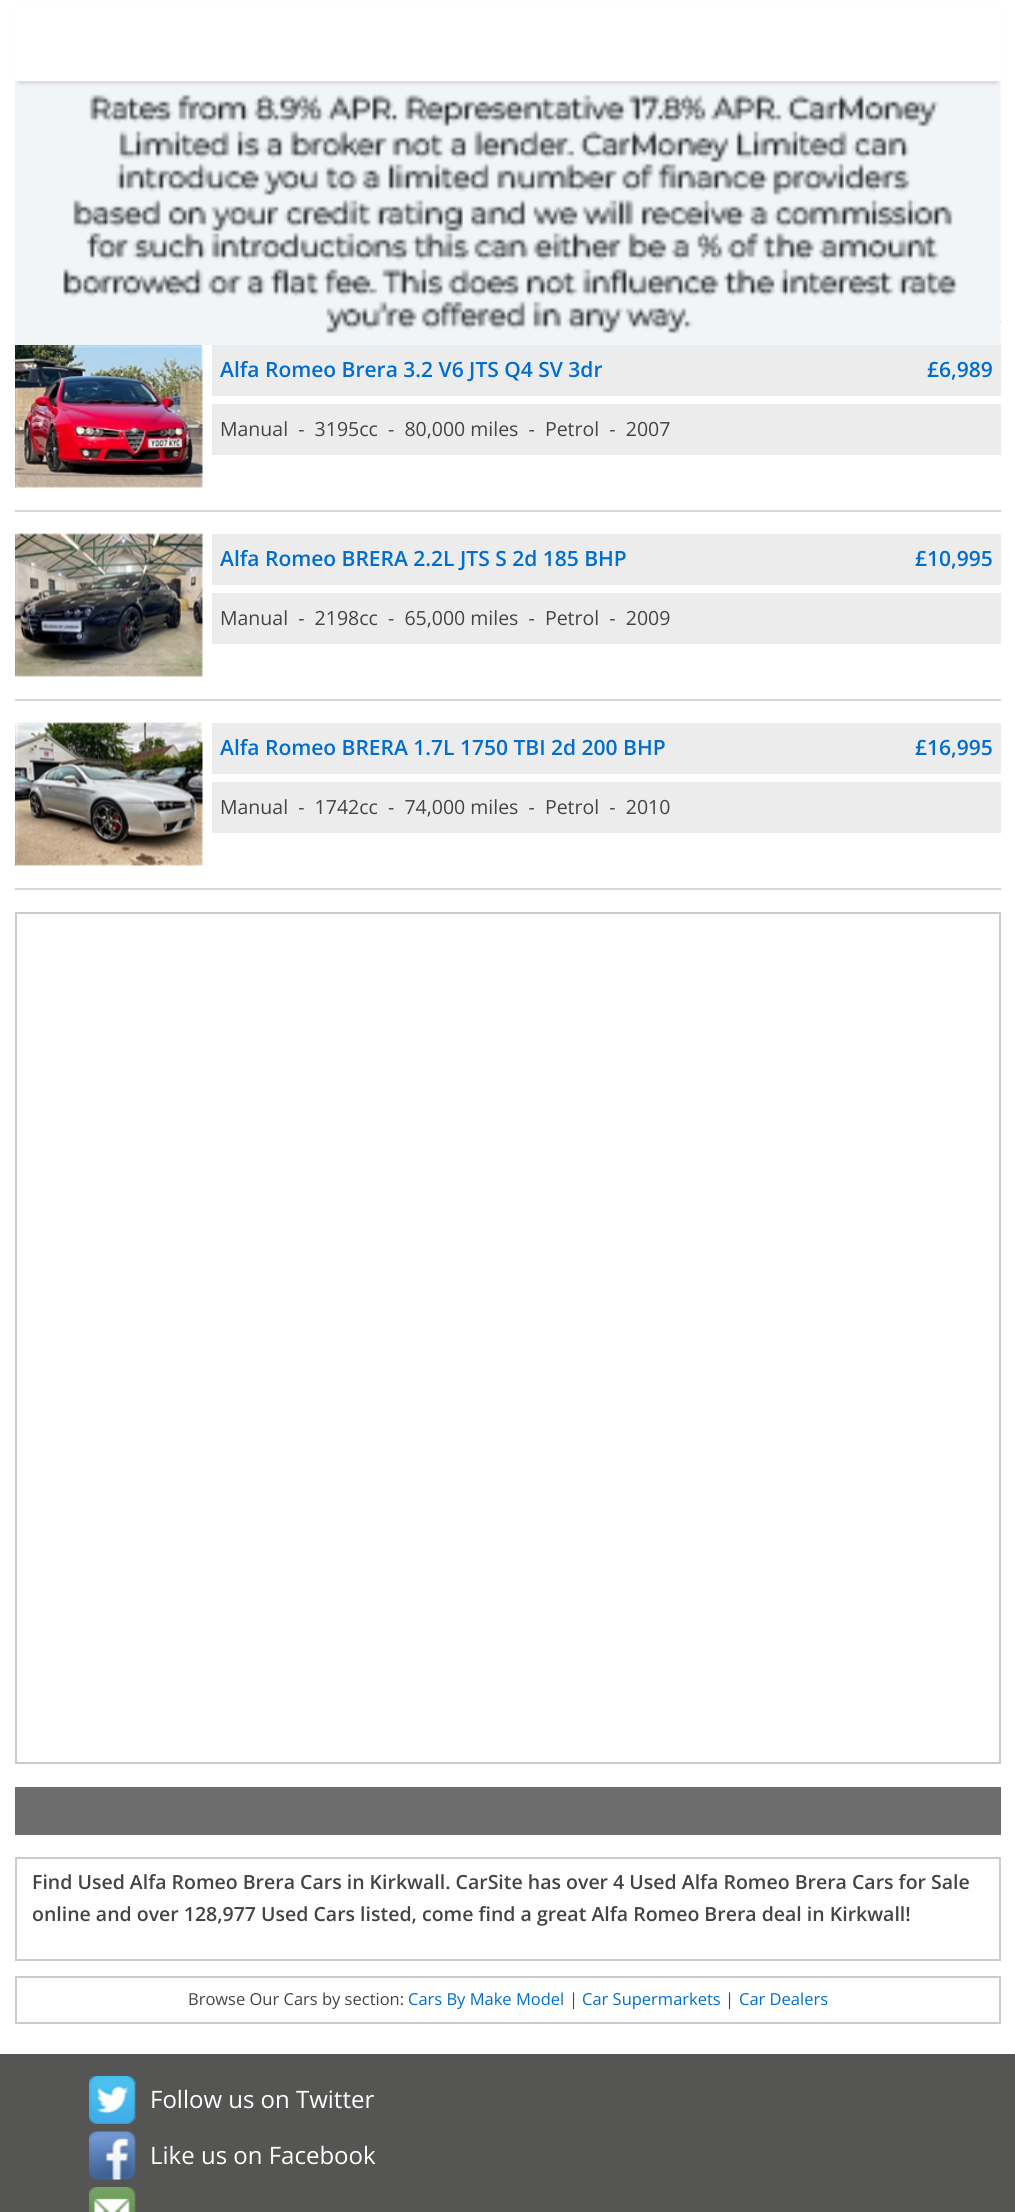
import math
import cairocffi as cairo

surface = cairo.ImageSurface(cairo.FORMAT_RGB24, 1015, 2212)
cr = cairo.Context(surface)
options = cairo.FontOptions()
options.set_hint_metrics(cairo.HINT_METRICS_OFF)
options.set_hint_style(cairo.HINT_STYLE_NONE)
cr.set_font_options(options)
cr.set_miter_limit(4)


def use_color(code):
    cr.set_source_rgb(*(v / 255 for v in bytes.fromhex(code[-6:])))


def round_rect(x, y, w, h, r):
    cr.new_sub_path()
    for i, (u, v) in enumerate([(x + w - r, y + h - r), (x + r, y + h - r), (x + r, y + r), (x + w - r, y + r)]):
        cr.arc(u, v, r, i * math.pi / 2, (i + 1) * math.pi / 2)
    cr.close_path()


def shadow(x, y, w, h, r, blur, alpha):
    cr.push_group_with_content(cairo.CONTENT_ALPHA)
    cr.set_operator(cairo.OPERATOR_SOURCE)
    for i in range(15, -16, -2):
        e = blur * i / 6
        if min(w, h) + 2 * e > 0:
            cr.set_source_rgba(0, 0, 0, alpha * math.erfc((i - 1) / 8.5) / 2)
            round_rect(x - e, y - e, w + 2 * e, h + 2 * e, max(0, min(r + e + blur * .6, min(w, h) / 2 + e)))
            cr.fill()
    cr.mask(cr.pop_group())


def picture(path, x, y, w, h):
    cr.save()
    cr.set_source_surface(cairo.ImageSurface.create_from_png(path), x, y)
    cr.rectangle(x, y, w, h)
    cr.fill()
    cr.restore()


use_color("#ffffff")
cr.paint()
use_color("#cccccc")
cr.rectangle(1000, 321, 1, 2)
cr.fill()
picture("img1.png", 15, 81, 986, 264)
use_color("#dcd9d9")
shadow(18, 9, 980, 75, 0, 1.5, 1)
use_color("#ffffff")
cr.rectangle(16, 7, 984, 74)
cr.fill()
use_color("#d5d5d5")
cr.rectangle(15, 510, 986, 2)
cr.fill()
picture("img2.png", 15, 345, 188, 143)
use_color("#ececec")
cr.rectangle(212, 345, 789, 51)
cr.fill()
cr.select_font_face("Open Sans SemiBold")
cr.set_font_size(21)
use_color("#006dd0")
cr.move_to(220, 377)
cr.show_text("Alfa Romeo Brera 3.2 V6 JTS Q4 SV 3dr")
cr.move_to(927, 377)
cr.show_text("£6,989")
use_color("#ececec")
cr.rectangle(212, 404, 789, 51)
cr.fill()
cr.select_font_face("Open Sans")
cr.set_font_size(19.5)
use_color("#444444")
cr.move_to(220, 436)
cr.show_text("Manual  -  3195cc  -  80,000 miles  -  Petrol  -  2007")
use_color("#d5d5d5")
cr.rectangle(15, 699, 986, 2)
cr.fill()
picture("img3.png", 15, 533, 188, 144)
use_color("#ececec")
cr.rectangle(212, 534, 789, 51)
cr.fill()
cr.select_font_face("Open Sans SemiBold")
cr.set_font_size(21)
use_color("#006dd0")
cr.move_to(220, 566)
cr.show_text("Alfa Romeo BRERA 2.2L JTS S 2d 185 BHP")
cr.move_to(915, 566)
cr.show_text("£10,995")
use_color("#ececec")
cr.rectangle(212, 593, 789, 51)
cr.fill()
cr.select_font_face("Open Sans")
cr.set_font_size(19.5)
use_color("#444444")
cr.move_to(220, 625)
cr.show_text("Manual  -  2198cc  -  65,000 miles  -  Petrol  -  2009")
use_color("#d5d5d5")
cr.rectangle(15, 888, 986, 2)
cr.fill()
picture("img4.png", 15, 722, 188, 144)
use_color("#ececec")
cr.rectangle(212, 723, 789, 51)
cr.fill()
cr.select_font_face("Open Sans SemiBold")
cr.set_font_size(21)
use_color("#006dd0")
cr.move_to(220, 755)
cr.show_text("Alfa Romeo BRERA 1.7L 1750 TBI 2d 200 BHP")
cr.move_to(915, 755)
cr.show_text("£16,995")
use_color("#ececec")
cr.rectangle(212, 782, 789, 51)
cr.fill()
cr.select_font_face("Open Sans")
cr.set_font_size(19.5)
use_color("#444444")
cr.move_to(220, 814)
cr.show_text("Manual  -  1742cc  -  74,000 miles  -  Petrol  -  2010")
cr.rectangle(16, 913, 984, 850)
use_color("#cccccc")
cr.stroke()
use_color("#6d6d6d")
cr.rectangle(15, 1787, 986, 48)
cr.fill()
cr.rectangle(16, 1858, 984, 102)
use_color("#cccccc")
cr.stroke()
cr.select_font_face("Open Sans SemiBold")
use_color("#444444")
cr.move_to(32, 1889)
cr.show_text("Find Used Alfa Romeo Brera Cars in Kirkwall. CarSite has over 4 Used Alfa Romeo Brera Cars for Sale")
cr.move_to(32, 1921)
cr.show_text("online and over 128,977 Used Cars listed, come find a great Alfa Romeo Brera deal in Kirkwall!")
cr.rectangle(16, 1977, 984, 46)
use_color("#cccccc")
cr.stroke()
cr.select_font_face("Open Sans")
cr.set_font_size(16.5)
use_color("#444444")
cr.move_to(188, 2005)
cr.show_text("Browse Our Cars by section:")
use_color("#006dd0")
cr.move_to(408, 2005)
cr.show_text("Cars By Make Model")
use_color("#444444")
cr.move_to(569, 2005)
cr.show_text("|")
use_color("#006dd0")
cr.move_to(582, 2005)
cr.show_text("Car Supermarkets")
use_color("#444444")
cr.move_to(725, 2005)
cr.show_text("|")
use_color("#006dd0")
cr.move_to(739, 2005)
cr.show_text("Car Dealers")
use_color("#555654")
cr.rectangle(0, 2054, 1015, 158)
cr.fill()
picture("img5.png", 89, 2076, 47, 48)
cr.set_font_size(24)
use_color("#ffffff")
cr.move_to(150, 2108)
cr.show_text("Follow us on Twitter")
picture("img6.png", 89, 2131, 47, 49)
cr.move_to(150, 2164)
cr.show_text("Like us on Facebook")
picture("img7.png", 89, 2187, 47, 25)
surface.write_to_png("result.png")
